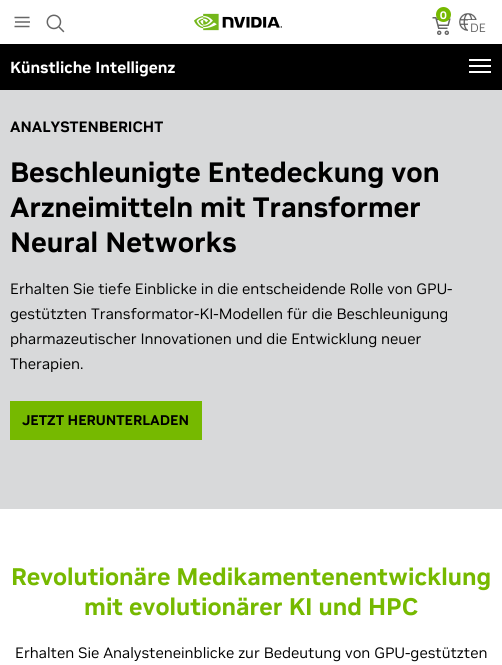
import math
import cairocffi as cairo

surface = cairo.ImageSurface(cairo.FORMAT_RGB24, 502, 665)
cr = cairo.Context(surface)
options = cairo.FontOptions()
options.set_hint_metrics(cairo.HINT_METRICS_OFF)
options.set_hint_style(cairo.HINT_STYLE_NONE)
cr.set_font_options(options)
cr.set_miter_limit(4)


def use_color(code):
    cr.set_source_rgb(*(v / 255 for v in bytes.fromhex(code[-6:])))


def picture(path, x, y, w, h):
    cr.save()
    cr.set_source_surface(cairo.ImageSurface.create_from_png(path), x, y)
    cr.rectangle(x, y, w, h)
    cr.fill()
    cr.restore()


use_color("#ffffff")
cr.paint()
cr.new_path()
cr.move_to(14.5, 17.5)
cr.line_to(29.5, 17.5)
use_color("#666666")
cr.set_line_width(1.5)
cr.stroke()
use_color("#8c8c8c")
cr.rectangle(15, 21, 15, 2)
cr.fill()
cr.new_path()
cr.move_to(14.5, 26.5)
cr.line_to(29.5, 26.5)
use_color("#666666")
cr.stroke()
picture("img1.png", 46, 14, 19, 19)
picture("img2.png", 194, 13, 88, 18)
picture("img3.png", 432, 17, 19, 18)
use_color("#76b900")
cr.arc(443.5, 14.5, 7.5, 0, 2 * math.pi)
cr.fill()
cr.select_font_face("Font", cairo.FONT_SLANT_NORMAL, cairo.FONT_WEIGHT_BOLD)
cr.set_font_size(11)
use_color("#ffffff")
cr.move_to(440, 19)
cr.show_text("0")
picture("img4.png", 459, 13, 18, 18)
cr.rectangle(468, 20, 9, 11)
cr.fill()
cr.select_font_face("Font")
cr.set_font_size(12)
use_color("#666666")
cr.move_to(470, 32)
cr.show_text("DE")
use_color("#000000")
cr.rectangle(0, 44, 502, 46)
cr.fill()
cr.select_font_face("Font", cairo.FONT_SLANT_NORMAL, cairo.FONT_WEIGHT_BOLD)
cr.set_font_size(16)
use_color("#ffffff")
cr.move_to(10, 73)
cr.show_text("Künstliche Intelligenz")
cr.rectangle(469, 59, 22, 2)
cr.fill()
cr.rectangle(469, 65, 22, 2)
cr.fill()
cr.rectangle(469, 71, 22, 2)
cr.fill()
use_color("#d8d9da")
cr.rectangle(0, 90, 502, 419)
cr.fill()
cr.set_font_size(15)
use_color("#000000")
cr.move_to(10, 132)
cr.show_text("ANALYSTENBERICHT")
cr.set_font_size(28)
cr.move_to(10, 182)
cr.show_text("Beschleunigte Entedeckung von")
cr.move_to(10, 217)
cr.show_text("Arzneimitteln mit Transformer")
cr.move_to(10, 252)
cr.show_text("Neural Networks")
cr.select_font_face("Font")
cr.set_font_size(15)
cr.move_to(10, 294)
cr.show_text("Erhalten Sie tiefe Einblicke in die entscheidende Rolle von GPU-")
cr.move_to(10, 319)
cr.show_text("gestützten Transformator-KI-Modellen für die Beschleunigung")
cr.move_to(10, 344)
cr.show_text("pharmazeutischer Innovationen und die Entwicklung neuer")
cr.move_to(10, 369)
cr.show_text("Therapien.")
use_color("#76b900")
cr.rectangle(10, 401, 192, 39)
cr.fill()
cr.select_font_face("Font", cairo.FONT_SLANT_NORMAL, cairo.FONT_WEIGHT_BOLD)
cr.set_font_size(14)
use_color("#000000")
cr.move_to(22, 425)
cr.show_text("JETZT HERUNTERLADEN")
cr.set_font_size(24)
use_color("#76b900")
cr.move_to(11, 585)
cr.show_text("Revolutionäre Medikamentenentwicklung")
cr.move_to(84, 615)
cr.show_text("mit evolutionärer KI und HPC")
cr.select_font_face("Font")
cr.set_font_size(15)
use_color("#000000")
cr.move_to(15, 658)
cr.show_text("Erhalten Sie Analysteneinblicke zur Bedeutung von GPU-gestützten")
surface.write_to_png("result.png")
